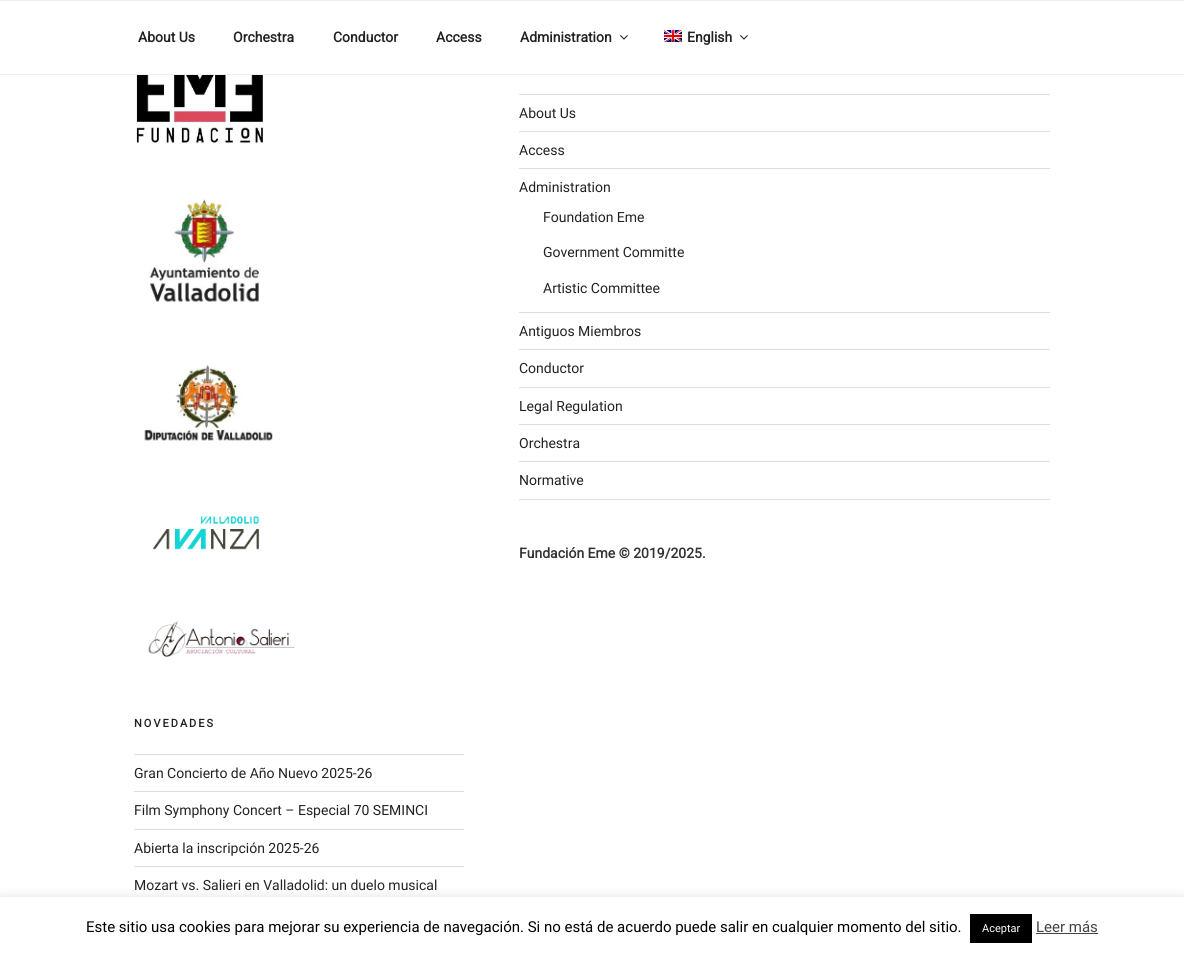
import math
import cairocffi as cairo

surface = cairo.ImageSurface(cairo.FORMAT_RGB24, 1184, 955)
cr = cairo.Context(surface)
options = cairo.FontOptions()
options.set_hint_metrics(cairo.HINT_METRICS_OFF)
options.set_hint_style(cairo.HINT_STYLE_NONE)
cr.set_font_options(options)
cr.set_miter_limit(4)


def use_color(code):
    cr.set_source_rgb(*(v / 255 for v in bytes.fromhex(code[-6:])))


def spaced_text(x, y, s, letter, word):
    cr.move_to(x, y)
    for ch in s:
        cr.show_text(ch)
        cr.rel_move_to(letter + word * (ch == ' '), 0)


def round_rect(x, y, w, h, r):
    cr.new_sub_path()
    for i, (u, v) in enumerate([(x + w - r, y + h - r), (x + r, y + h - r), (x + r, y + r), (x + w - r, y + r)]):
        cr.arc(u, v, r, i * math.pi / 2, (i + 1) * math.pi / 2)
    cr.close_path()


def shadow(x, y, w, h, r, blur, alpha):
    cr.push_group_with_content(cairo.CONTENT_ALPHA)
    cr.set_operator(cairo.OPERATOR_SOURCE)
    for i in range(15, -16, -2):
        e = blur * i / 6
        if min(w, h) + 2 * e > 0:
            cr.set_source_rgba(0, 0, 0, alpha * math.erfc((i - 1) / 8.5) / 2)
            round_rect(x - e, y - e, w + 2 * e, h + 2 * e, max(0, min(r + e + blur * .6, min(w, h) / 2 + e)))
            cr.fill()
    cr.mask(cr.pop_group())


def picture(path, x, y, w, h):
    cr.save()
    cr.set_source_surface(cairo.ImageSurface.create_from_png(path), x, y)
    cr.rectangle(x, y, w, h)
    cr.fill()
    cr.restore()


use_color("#ffffff")
cr.paint()
use_color("#eeeeee")
cr.rectangle(0, 0, 1184, 1)
cr.fill()
cr.rectangle(0, 74, 1184, 1)
cr.fill()
cr.select_font_face("Roboto", cairo.FONT_SLANT_NORMAL, cairo.FONT_WEIGHT_BOLD)
cr.set_font_size(14)
use_color("#222222")
cr.move_to(138, 42)
cr.show_text("About Us")
cr.move_to(233, 42)
cr.show_text("Orchestra")
cr.move_to(333, 42)
cr.show_text("Conductor")
cr.move_to(436, 42)
cr.show_text("Access")
cr.move_to(520, 42)
cr.show_text("Administration")
picture("img1.png", 620, 35, 8, 5)
picture("img2.png", 664, 30, 18, 12)
cr.move_to(687, 42)
cr.show_text("English")
picture("img1.png", 740, 35, 8, 5)
use_color("#dddddd")
cr.rectangle(519, 94, 531, 1)
cr.fill()
cr.rectangle(519, 131, 531, 1)
cr.fill()
cr.select_font_face("Roboto")
use_color("#222222")
cr.move_to(519, 118)
cr.show_text("About Us")
use_color("#dddddd")
cr.rectangle(519, 168, 531, 1)
cr.fill()
use_color("#222222")
cr.move_to(519, 155)
cr.show_text("Access")
use_color("#dddddd")
cr.rectangle(519, 312, 531, 1)
cr.fill()
use_color("#222222")
cr.move_to(519, 192)
cr.show_text("Administration")
cr.move_to(543, 222)
cr.show_text("Foundation Eme")
cr.move_to(543, 257)
cr.show_text("Government Committe")
cr.move_to(543, 293)
cr.show_text("Artistic Committee")
use_color("#dddddd")
cr.rectangle(519, 349, 531, 1)
cr.fill()
use_color("#222222")
cr.move_to(519, 336)
cr.show_text("Antiguos Miembros")
use_color("#dddddd")
cr.rectangle(519, 387, 531, 1)
cr.fill()
use_color("#222222")
cr.move_to(519, 373)
cr.show_text("Conductor")
use_color("#dddddd")
cr.rectangle(519, 424, 531, 1)
cr.fill()
use_color("#222222")
cr.move_to(519, 411)
cr.show_text("Legal Regulation")
use_color("#dddddd")
cr.rectangle(519, 461, 531, 1)
cr.fill()
use_color("#222222")
cr.move_to(519, 448)
cr.show_text("Orchestra")
use_color("#dddddd")
cr.rectangle(519, 499, 531, 1)
cr.fill()
use_color("#222222")
cr.move_to(519, 485)
cr.show_text("Normative")
cr.select_font_face("Roboto", cairo.FONT_SLANT_NORMAL, cairo.FONT_WEIGHT_BOLD)
use_color("#333333")
cr.move_to(519, 558)
cr.show_text("Fundación Eme © 2019/2025.")
picture("img3.png", 136, 75, 128, 69)
picture("img4.png", 149, 198, 111, 104)
picture("img5.png", 144, 365, 129, 76)
picture("img6.png", 152, 516, 108, 34)
picture("img7.png", 148, 621, 147, 36)
cr.set_font_size(11)
use_color("#222222")
spaced_text(134, 727, "NOVEDADES", 2, 0)
use_color("#dddddd")
cr.rectangle(134, 754, 330, 1)
cr.fill()
cr.rectangle(134, 791, 330, 1)
cr.fill()
cr.select_font_face("Roboto")
cr.set_font_size(14)
use_color("#222222")
cr.move_to(134, 778)
cr.show_text("Gran Concierto de Año Nuevo 2025-26")
use_color("#dddddd")
cr.rectangle(134, 829, 330, 1)
cr.fill()
use_color("#222222")
cr.move_to(134, 815)
cr.show_text("Film Symphony Concert – Especial 70 SEMINCI")
use_color("#dddddd")
cr.rectangle(134, 866, 330, 1)
cr.fill()
use_color("#222222")
cr.move_to(134, 853)
cr.show_text("Abierta la inscripción 2025-26")
cr.move_to(134, 890)
cr.show_text("Mozart vs. Salieri en Valladolid: un duelo musical")
use_color("#acabab")
shadow(0, 896, 1184, 58, 0, 5, 0.3)
use_color("#ffffff")
cr.rectangle(0, 897, 1184, 58)
cr.fill()
cr.set_font_size(15)
use_color("#000000")
cr.move_to(86, 932)
cr.show_text("Este sitio usa cookies para mejorar su experiencia de navegación. Si no está de acuerdo puede salir en cualquier momento del sitio.")
cr.rectangle(970, 914, 62, 29)
cr.fill()
cr.set_font_size(11)
use_color("#ffffff")
cr.move_to(982, 932)
cr.show_text("Aceptar")
cr.set_font_size(15)
use_color("#444444")
cr.move_to(1036, 932)
cr.show_text("Leer más")
cr.rectangle(1036, 933, 62, 1)
cr.fill()
surface.write_to_png("result.png")
